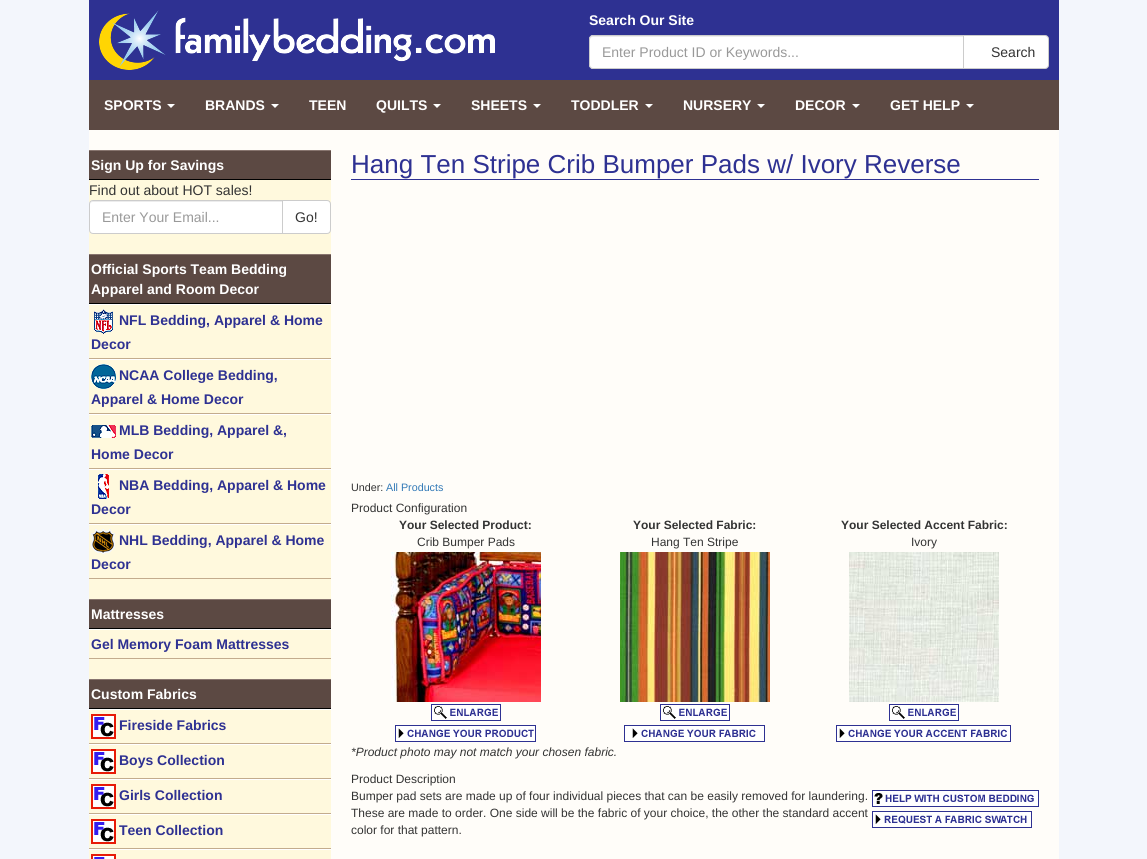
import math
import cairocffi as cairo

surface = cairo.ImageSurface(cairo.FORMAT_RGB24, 1147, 859)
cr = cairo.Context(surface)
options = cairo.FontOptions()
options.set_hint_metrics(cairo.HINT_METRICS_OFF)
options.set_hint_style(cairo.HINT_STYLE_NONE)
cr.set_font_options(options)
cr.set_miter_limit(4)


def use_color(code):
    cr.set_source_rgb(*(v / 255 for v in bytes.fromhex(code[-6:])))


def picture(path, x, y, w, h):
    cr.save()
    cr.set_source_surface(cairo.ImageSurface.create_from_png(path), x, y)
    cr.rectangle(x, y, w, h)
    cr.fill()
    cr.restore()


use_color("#f3f6fc")
cr.paint()
use_color("#2e3192")
cr.rectangle(89, 0, 970, 80)
cr.fill()
picture("img1.png", 99, 10, 396, 60)
cr.select_font_face("Liberation Sans", cairo.FONT_SLANT_NORMAL, cairo.FONT_WEIGHT_BOLD)
cr.set_font_size(14)
use_color("#ffffff")
cr.move_to(589, 25)
cr.show_text("Search Our Site")
cr.new_path()
cr.move_to(963.5, 35.5)
cr.line_to(1045, 35.5)
cr.curve_to(1047, 35.5, 1048.5, 37, 1048.5, 39)
cr.line_to(1048.5, 65)
cr.curve_to(1048.5, 67, 1047, 68.5, 1045, 68.5)
cr.line_to(963.5, 68.5)
cr.close_path()
cr.fill_preserve()
use_color("#cccccc")
cr.set_line_width(1)
cr.stroke()
use_color("#ffffff")
cr.new_path()
cr.move_to(593, 35)
cr.line_to(964, 35)
cr.line_to(964, 69)
cr.line_to(593, 69)
cr.curve_to(591, 69, 589, 67, 589, 65)
cr.line_to(589, 39)
cr.curve_to(589, 37, 591, 35, 593, 35)
cr.close_path()
cr.fill()
use_color("#ececec")
cr.new_path()
cr.move_to(593, 37)
cr.line_to(963, 37)
cr.line_to(963, 36)
cr.line_to(593, 36)
cr.curve_to(591, 36, 590, 37, 590, 39)
cr.line_to(590, 40)
cr.curve_to(590, 38, 591, 37, 593, 37)
cr.close_path()
cr.fill()
cr.new_path()
cr.move_to(593, 35.5)
cr.line_to(963.5, 35.5)
cr.line_to(963.5, 68.5)
cr.line_to(593, 68.5)
cr.curve_to(591, 68.5, 589.5, 67, 589.5, 65)
cr.line_to(589.5, 39)
cr.curve_to(589.5, 37, 591, 35.5, 593, 35.5)
cr.close_path()
use_color("#cccccc")
cr.stroke()
cr.select_font_face("Liberation Sans")
use_color("#999999")
cr.move_to(602, 57)
cr.show_text("Enter Product ID or Keywords...")
use_color("#333333")
cr.move_to(991, 57)
cr.show_text("Search")
use_color("#5c4943")
cr.rectangle(89, 80, 970, 50)
cr.fill()
cr.select_font_face("Liberation Sans", cairo.FONT_SLANT_NORMAL, cairo.FONT_WEIGHT_BOLD)
use_color("#ffffff")
cr.move_to(104, 110)
cr.show_text("SPORTS")
cr.new_path()
cr.move_to(167, 104)
cr.line_to(175, 104)
cr.line_to(171, 108)
cr.close_path()
cr.fill()
cr.move_to(205, 110)
cr.show_text("BRANDS")
cr.new_path()
cr.move_to(271, 104)
cr.line_to(279, 104)
cr.line_to(275, 108)
cr.close_path()
cr.fill()
cr.move_to(309, 110)
cr.show_text("TEEN")
cr.move_to(376, 110)
cr.show_text("QUILTS")
cr.new_path()
cr.move_to(433, 104)
cr.line_to(441, 104)
cr.line_to(437, 108)
cr.close_path()
cr.fill()
cr.move_to(471, 110)
cr.show_text("SHEETS")
cr.new_path()
cr.move_to(533, 104)
cr.line_to(541, 104)
cr.line_to(537, 108)
cr.close_path()
cr.fill()
cr.move_to(571, 110)
cr.show_text("TODDLER")
cr.new_path()
cr.move_to(645, 104)
cr.line_to(653, 104)
cr.line_to(649, 108)
cr.close_path()
cr.fill()
cr.move_to(683, 110)
cr.show_text("NURSERY")
cr.new_path()
cr.move_to(757, 104)
cr.line_to(765, 104)
cr.line_to(761, 108)
cr.close_path()
cr.fill()
cr.move_to(795, 110)
cr.show_text("DECOR")
cr.new_path()
cr.move_to(852, 104)
cr.line_to(860, 104)
cr.line_to(856, 108)
cr.close_path()
cr.fill()
cr.move_to(890, 110)
cr.show_text("GET HELP")
cr.new_path()
cr.move_to(966, 104)
cr.line_to(974, 104)
cr.line_to(970, 108)
cr.close_path()
cr.fill()
use_color("#fffdf9")
cr.rectangle(89, 130, 970, 729)
cr.fill()
use_color("#fff9dd")
cr.rectangle(89, 180, 242, 679)
cr.fill()
use_color("#5c4943")
cr.rectangle(89, 151, 242, 28)
cr.fill()
use_color("#88756f")
cr.rectangle(89, 150, 242, 1)
cr.fill()
use_color("#000000")
cr.rectangle(89, 179, 242, 1)
cr.fill()
use_color("#ffffff")
cr.move_to(91, 170)
cr.show_text("Sign Up for Savings")
cr.select_font_face("Liberation Sans")
use_color("#333333")
cr.move_to(89, 195)
cr.show_text("Find out about HOT sales!")
use_color("#ffffff")
cr.new_path()
cr.move_to(282.5, 200.5)
cr.line_to(327, 200.5)
cr.curve_to(329, 200.5, 330.5, 202, 330.5, 204)
cr.line_to(330.5, 230)
cr.curve_to(330.5, 232, 329, 233.5, 327, 233.5)
cr.line_to(282.5, 233.5)
cr.close_path()
cr.fill_preserve()
use_color("#cccccc")
cr.stroke()
use_color("#ffffff")
cr.new_path()
cr.move_to(93, 200)
cr.line_to(283, 200)
cr.line_to(283, 234)
cr.line_to(93, 234)
cr.curve_to(91, 234, 89, 232, 89, 230)
cr.line_to(89, 204)
cr.curve_to(89, 202, 91, 200, 93, 200)
cr.close_path()
cr.fill()
use_color("#ececec")
cr.new_path()
cr.move_to(93, 202)
cr.line_to(282, 202)
cr.line_to(282, 201)
cr.line_to(93, 201)
cr.curve_to(91, 201, 90, 203, 90, 205)
cr.curve_to(90, 203, 91, 202, 93, 202)
cr.close_path()
cr.fill()
cr.new_path()
cr.move_to(93, 200.5)
cr.line_to(282.5, 200.5)
cr.line_to(282.5, 233.5)
cr.line_to(93, 233.5)
cr.curve_to(91, 233.5, 89.5, 232, 89.5, 230)
cr.line_to(89.5, 204)
cr.curve_to(89.5, 202, 91, 200.5, 93, 200.5)
cr.close_path()
use_color("#cccccc")
cr.stroke()
use_color("#999999")
cr.move_to(102, 222)
cr.show_text("Enter Your Email...")
use_color("#333333")
cr.move_to(295, 222)
cr.show_text("Go!")
use_color("#5c4943")
cr.rectangle(89, 255, 242, 48)
cr.fill()
use_color("#88756f")
cr.rectangle(89, 254, 242, 1)
cr.fill()
use_color("#000000")
cr.rectangle(89, 303, 242, 1)
cr.fill()
cr.select_font_face("Liberation Sans", cairo.FONT_SLANT_NORMAL, cairo.FONT_WEIGHT_BOLD)
use_color("#ffffff")
cr.move_to(91, 274)
cr.show_text("Official Sports Team Bedding")
cr.move_to(91, 294)
cr.show_text("Apparel and Room Decor")
cr.rectangle(89, 304, 242, 1)
cr.fill()
use_color("#c3ac8d")
cr.rectangle(89, 358, 242, 1)
cr.fill()
picture("img2.png", 94, 309, 19, 25)
use_color("#2e3192")
cr.move_to(119, 325)
cr.show_text("NFL Bedding, Apparel & Home")
cr.move_to(91, 349)
cr.show_text("Decor")
use_color("#ffffff")
cr.rectangle(89, 359, 242, 1)
cr.fill()
use_color("#c3ac8d")
cr.rectangle(89, 413, 242, 1)
cr.fill()
picture("img3.png", 91, 364, 25, 25)
use_color("#2e3192")
cr.move_to(119, 380)
cr.show_text("NCAA College Bedding,")
cr.move_to(91, 404)
cr.show_text("Apparel & Home Decor")
use_color("#ffffff")
cr.rectangle(89, 414, 242, 1)
cr.fill()
use_color("#c3ac8d")
cr.rectangle(89, 468, 242, 1)
cr.fill()
picture("img4.png", 91, 425, 25, 13)
use_color("#2e3192")
cr.move_to(119, 435)
cr.show_text("MLB Bedding, Apparel &,")
cr.move_to(91, 459)
cr.show_text("Home Decor")
use_color("#ffffff")
cr.rectangle(89, 469, 242, 1)
cr.fill()
use_color("#c3ac8d")
cr.rectangle(89, 523, 242, 1)
cr.fill()
picture("img5.png", 98, 474, 11, 25)
use_color("#2e3192")
cr.move_to(119, 490)
cr.show_text("NBA Bedding, Apparel & Home")
cr.move_to(91, 514)
cr.show_text("Decor")
use_color("#ffffff")
cr.rectangle(89, 524, 242, 1)
cr.fill()
use_color("#c3ac8d")
cr.rectangle(89, 578, 242, 1)
cr.fill()
picture("img6.png", 91, 529, 24, 25)
use_color("#2e3192")
cr.move_to(119, 545)
cr.show_text("NHL Bedding, Apparel & Home")
cr.move_to(91, 569)
cr.show_text("Decor")
use_color("#5c4943")
cr.rectangle(89, 600, 242, 28)
cr.fill()
use_color("#88756f")
cr.rectangle(89, 599, 242, 1)
cr.fill()
use_color("#000000")
cr.rectangle(89, 628, 242, 1)
cr.fill()
use_color("#ffffff")
cr.move_to(91, 619)
cr.show_text("Mattresses")
cr.rectangle(89, 629, 242, 1)
cr.fill()
use_color("#c3ac8d")
cr.rectangle(89, 658, 242, 1)
cr.fill()
use_color("#2e3192")
cr.move_to(91, 649)
cr.show_text("Gel Memory Foam Mattresses")
use_color("#5c4943")
cr.rectangle(89, 680, 242, 28)
cr.fill()
use_color("#88756f")
cr.rectangle(89, 679, 242, 1)
cr.fill()
use_color("#000000")
cr.rectangle(89, 708, 242, 1)
cr.fill()
use_color("#ffffff")
cr.move_to(91, 699)
cr.show_text("Custom Fabrics")
cr.rectangle(89, 709, 242, 1)
cr.fill()
use_color("#c3ac8d")
cr.rectangle(89, 743, 242, 1)
cr.fill()
picture("img7.png", 91, 714, 25, 25)
use_color("#2e3192")
cr.move_to(119, 730)
cr.show_text("Fireside Fabrics")
use_color("#ffffff")
cr.rectangle(89, 744, 242, 1)
cr.fill()
use_color("#c3ac8d")
cr.rectangle(89, 778, 242, 1)
cr.fill()
picture("img7.png", 91, 749, 25, 25)
use_color("#2e3192")
cr.move_to(119, 765)
cr.show_text("Boys Collection")
use_color("#ffffff")
cr.rectangle(89, 779, 242, 1)
cr.fill()
use_color("#c3ac8d")
cr.rectangle(89, 813, 242, 1)
cr.fill()
picture("img7.png", 91, 784, 25, 25)
use_color("#2e3192")
cr.move_to(119, 800)
cr.show_text("Girls Collection")
use_color("#ffffff")
cr.rectangle(89, 814, 242, 1)
cr.fill()
use_color("#c3ac8d")
cr.rectangle(89, 848, 242, 1)
cr.fill()
picture("img7.png", 91, 819, 25, 25)
use_color("#2e3192")
cr.move_to(119, 835)
cr.show_text("Teen Collection")
use_color("#ffffff")
cr.rectangle(89, 849, 242, 1)
cr.fill()
picture("img8.png", 91, 854, 25, 5)
use_color("#2e3192")
cr.rectangle(351, 179, 688, 1)
cr.fill()
cr.select_font_face("Liberation Sans")
cr.set_font_size(26)
cr.move_to(351, 173)
cr.show_text("Hang Ten Stripe Crib Bumper Pads w/ Ivory Reverse")
cr.set_font_size(10.75)
use_color("#333333")
cr.move_to(351, 491)
cr.show_text("Under:")
use_color("#337ab7")
cr.move_to(386, 491)
cr.show_text("All Products")
cr.set_font_size(12)
use_color("#333333")
cr.move_to(351, 512)
cr.show_text("Product Configuration")
cr.select_font_face("Liberation Sans", cairo.FONT_SLANT_NORMAL, cairo.FONT_WEIGHT_BOLD)
cr.move_to(399, 529)
cr.show_text("Your Selected Product:")
cr.move_to(633, 529)
cr.show_text("Your Selected Fabric:")
cr.move_to(841, 529)
cr.show_text("Your Selected Accent Fabric:")
cr.select_font_face("Liberation Sans")
cr.move_to(417, 546)
cr.show_text("Crib Bumper Pads")
picture("img9.png", 391, 552, 150, 150)
picture("img10.png", 431, 704, 70, 17)
cr.move_to(651, 546)
cr.show_text("Hang Ten Stripe")
picture("img11.png", 620, 552, 150, 150)
picture("img10.png", 660, 704, 70, 17)
cr.move_to(911, 546)
cr.show_text("Ivory")
picture("img12.png", 849, 552, 150, 150)
picture("img10.png", 889, 704, 70, 17)
picture("img13.png", 395, 725, 141, 17)
picture("img14.png", 624, 725, 141, 17)
picture("img15.png", 836, 725, 175, 17)
cr.select_font_face("Liberation Sans", cairo.FONT_SLANT_ITALIC)
cr.move_to(351, 756)
cr.show_text("*Product photo may not match your chosen fabric.")
cr.select_font_face("Liberation Sans")
cr.move_to(351, 783)
cr.show_text("Product Description")
picture("img16.png", 872, 790, 167, 17)
picture("img17.png", 872, 811, 160, 17)
cr.move_to(351, 800)
cr.show_text("Bumper pad sets are made up of four individual pieces that can be easily removed for laundering.")
cr.move_to(351, 817)
cr.show_text("These are made to order. One side will be the fabric of your choice, the other the standard accent")
cr.move_to(351, 834)
cr.show_text("color for that pattern.")
surface.write_to_png("result.png")
